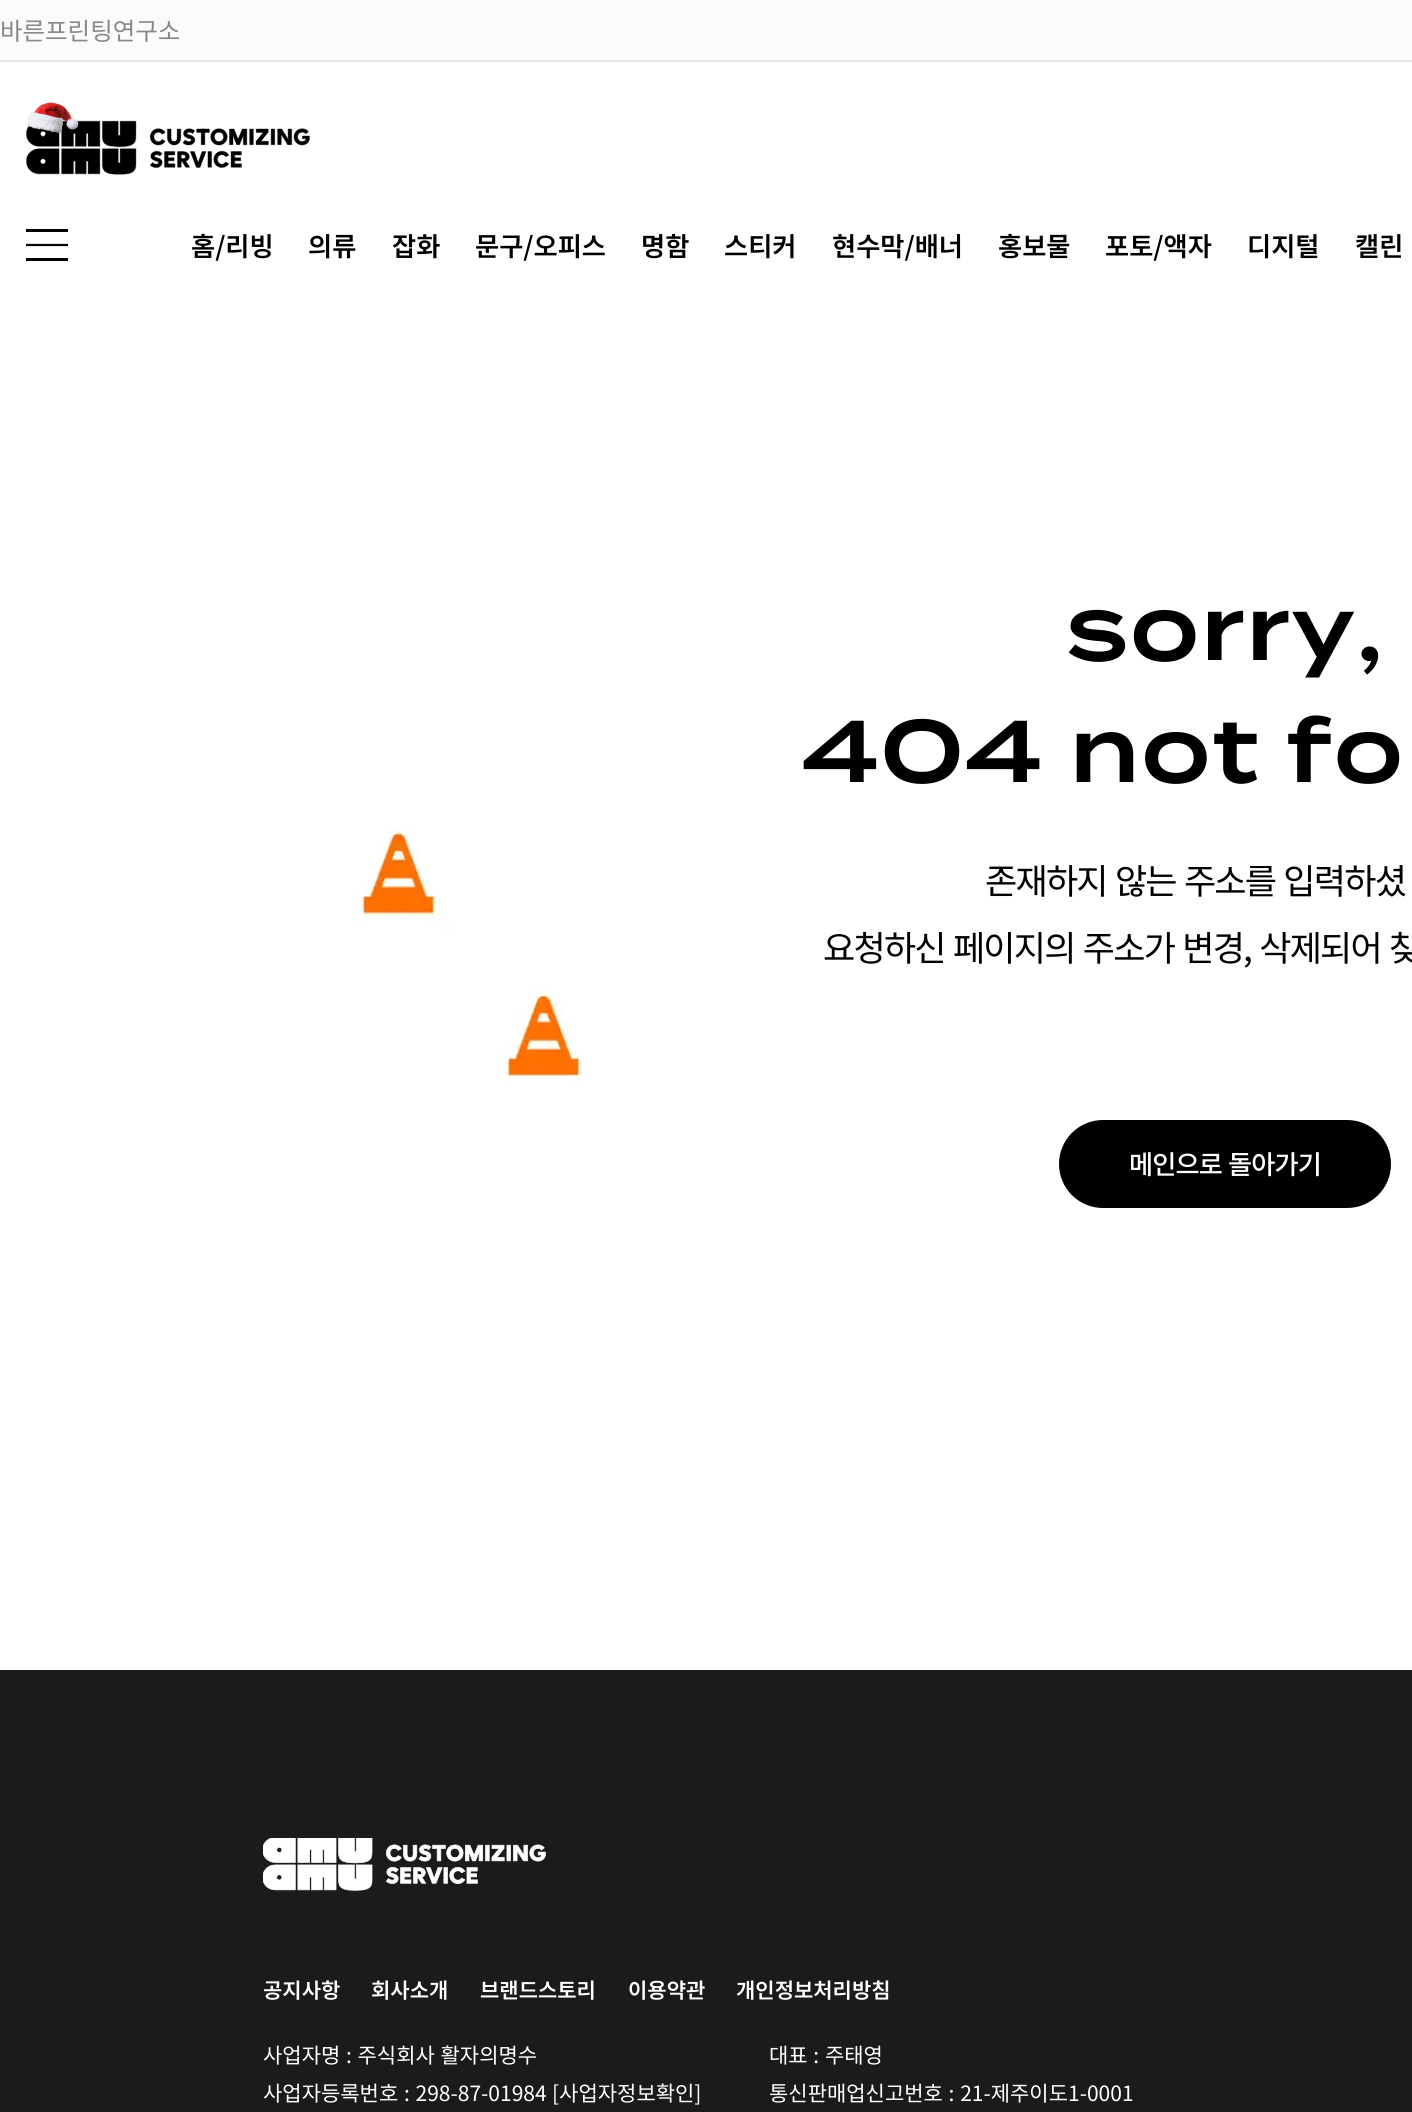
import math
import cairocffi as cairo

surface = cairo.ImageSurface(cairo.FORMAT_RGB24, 1412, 2112)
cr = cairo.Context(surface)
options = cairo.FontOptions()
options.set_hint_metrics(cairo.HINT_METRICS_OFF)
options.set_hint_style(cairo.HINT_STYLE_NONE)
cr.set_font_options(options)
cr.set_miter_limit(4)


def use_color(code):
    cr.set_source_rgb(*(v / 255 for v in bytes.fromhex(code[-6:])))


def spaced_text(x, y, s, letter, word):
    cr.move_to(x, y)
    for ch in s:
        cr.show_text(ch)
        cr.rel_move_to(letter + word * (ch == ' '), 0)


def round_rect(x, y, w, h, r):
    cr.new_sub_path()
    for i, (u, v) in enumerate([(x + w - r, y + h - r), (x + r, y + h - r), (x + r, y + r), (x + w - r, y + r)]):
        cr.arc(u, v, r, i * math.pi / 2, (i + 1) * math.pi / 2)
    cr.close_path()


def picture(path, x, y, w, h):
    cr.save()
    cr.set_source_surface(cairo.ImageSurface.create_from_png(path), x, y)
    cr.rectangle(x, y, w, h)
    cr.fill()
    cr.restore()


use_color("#ffffff")
cr.paint()
use_color("#fbfbfb")
cr.rectangle(0, 0, 1412, 60)
cr.fill()
use_color("#e5e7eb")
cr.rectangle(0, 60, 1412, 2)
cr.fill()
cr.select_font_face("Noto Sans KR")
cr.set_font_size(24.5)
use_color("#888888")
cr.move_to(0, 40)
cr.show_text("바른프린팅연구소")
picture("img1.png", 26, 102, 284, 73)
picture("img2.png", 26, 229, 42, 32)
cr.select_font_face("Noto Sans KR SemiBold")
cr.set_font_size(26.25)
use_color("#000000")
cr.move_to(191, 256)
cr.show_text("홈/리빙")
cr.move_to(308, 256)
cr.show_text("의류")
cr.move_to(392, 256)
cr.show_text("잡화")
cr.move_to(475, 256)
cr.show_text("문구/오피스")
cr.move_to(641, 256)
cr.show_text("명함")
cr.move_to(724, 256)
cr.show_text("스티커")
cr.move_to(832, 256)
cr.show_text("현수막/배너")
cr.move_to(998, 256)
cr.show_text("홍보물")
cr.move_to(1105, 256)
cr.show_text("포토/액자")
cr.move_to(1247, 256)
cr.show_text("디지털")
cr.move_to(1355, 256)
cr.show_text("캘린")
picture("img3.png", 357, 827, 225, 256)
cr.select_font_face("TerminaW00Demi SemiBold")
cr.set_font_size(87.5)
spaced_text(1066, 660, "sorry,", 1.75, 0)
spaced_text(802, 782, "404 not fo", 1.75, 0)
cr.select_font_face("Noto Sans KR")
cr.set_font_size(35)
spaced_text(985, 894, "존재하지 않는 주소를 입력하셨", -1.75, 2)
spaced_text(823, 961, "요청하신 페이지의 주소가 변경, 삭제되어 찾", -1.75, 2)
round_rect(1059, 1120, 332, 88, 44)
cr.fill()
cr.select_font_face("Noto Sans KR Medium")
cr.set_font_size(26.25)
use_color("#ffffff")
spaced_text(1129, 1174, "메인으로 돌아가기", -0.9, 1)
use_color("#1b1b1b")
cr.rectangle(0, 1670, 1412, 442)
cr.fill()
picture("img4.png", 263, 1838, 283, 53)
cr.select_font_face("Noto Sans KR SemiBold")
cr.set_font_size(21)
use_color("#ffffff")
cr.move_to(263, 1998)
cr.show_text("공지사항")
cr.move_to(371, 1998)
cr.show_text("회사소개")
cr.move_to(480, 1998)
cr.show_text("브랜드스토리")
cr.move_to(628, 1998)
cr.show_text("이용약관")
cr.move_to(736, 1998)
cr.show_text("개인정보처리방침")
cr.select_font_face("Noto Sans KR")
spaced_text(263, 2063, "사업자명 : 주식회사 활자의명수", 0, 1)
spaced_text(769, 2063, "대표 : 주태영", 0, 1)
spaced_text(263, 2101, "사업자등록번호 : 298-87-01984", 0, 1)
cr.move_to(552, 2101)
cr.show_text("[사업자정보확인]")
spaced_text(769, 2101, "통신판매업신고번호 : 21-제주이도1-0001", 0, 1)
surface.write_to_png("result.png")
